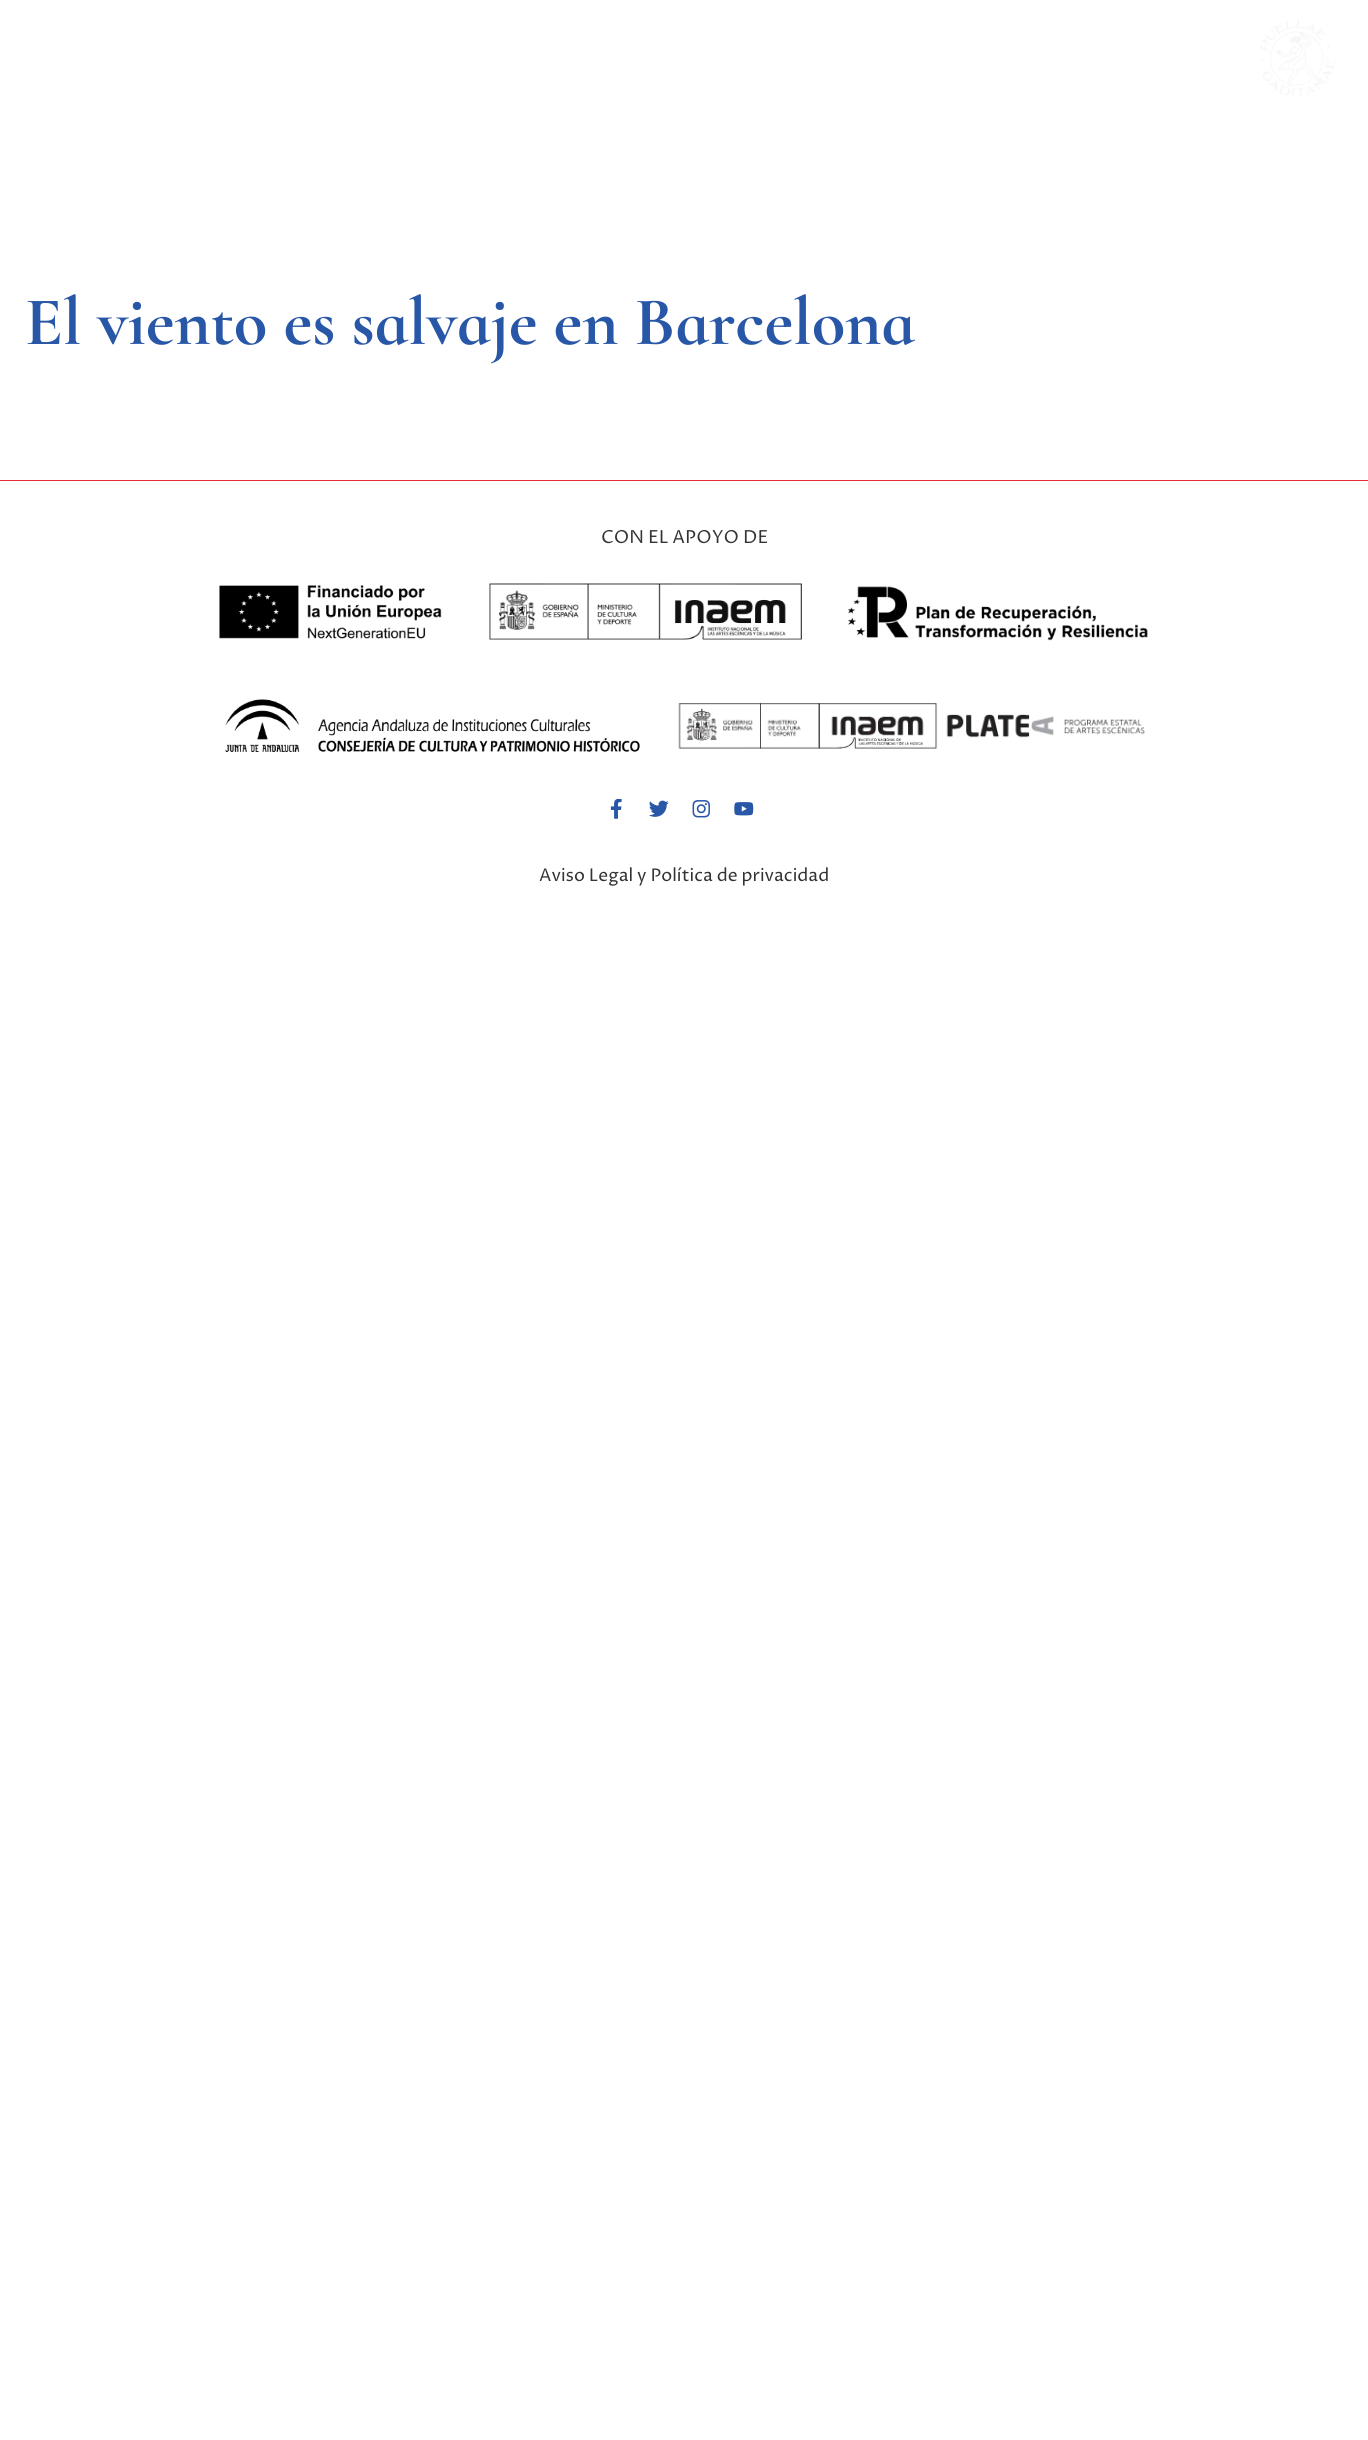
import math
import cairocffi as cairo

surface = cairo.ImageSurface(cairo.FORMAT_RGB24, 1368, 2440)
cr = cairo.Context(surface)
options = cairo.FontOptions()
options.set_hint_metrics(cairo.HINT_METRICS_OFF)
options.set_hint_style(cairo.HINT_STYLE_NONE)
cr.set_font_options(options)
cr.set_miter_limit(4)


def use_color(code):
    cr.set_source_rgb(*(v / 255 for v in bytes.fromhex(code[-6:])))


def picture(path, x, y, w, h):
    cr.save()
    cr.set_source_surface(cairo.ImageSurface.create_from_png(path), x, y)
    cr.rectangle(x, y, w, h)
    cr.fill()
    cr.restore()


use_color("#ffffff")
cr.paint()
picture("img1.png", 1260, 20, 75, 77)
cr.select_font_face("Cormorant Infant", cairo.FONT_SLANT_NORMAL, cairo.FONT_WEIGHT_BOLD)
cr.set_font_size(68.75)
use_color("#2957a7")
cr.move_to(25, 344)
cr.show_text("El viento es salvaje en Barcelona")
use_color("#e72b35")
cr.rectangle(0, 480, 1368, 1)
cr.fill()
cr.select_font_face("Proza Libre")
cr.set_font_size(18)
use_color("#333333")
cr.move_to(601, 543)
cr.show_text("CON EL APOYO DE")
picture("img2.png", 219, 585, 223, 54)
picture("img3.png", 489, 583, 313, 57)
picture("img4.png", 847, 586, 301, 55)
picture("img5.png", 225, 699, 415, 53)
picture("img6.png", 678, 702, 467, 47)
picture("img7.png", 610, 799, 12, 20)
picture("img8.png", 649, 800, 20, 17)
picture("img9.png", 692, 800, 18, 18)
picture("img10.png", 734, 802, 20, 14)
cr.set_font_size(17.5)
cr.move_to(539, 881)
cr.show_text("Aviso Legal y Política de privacidad")
surface.write_to_png("result.png")
